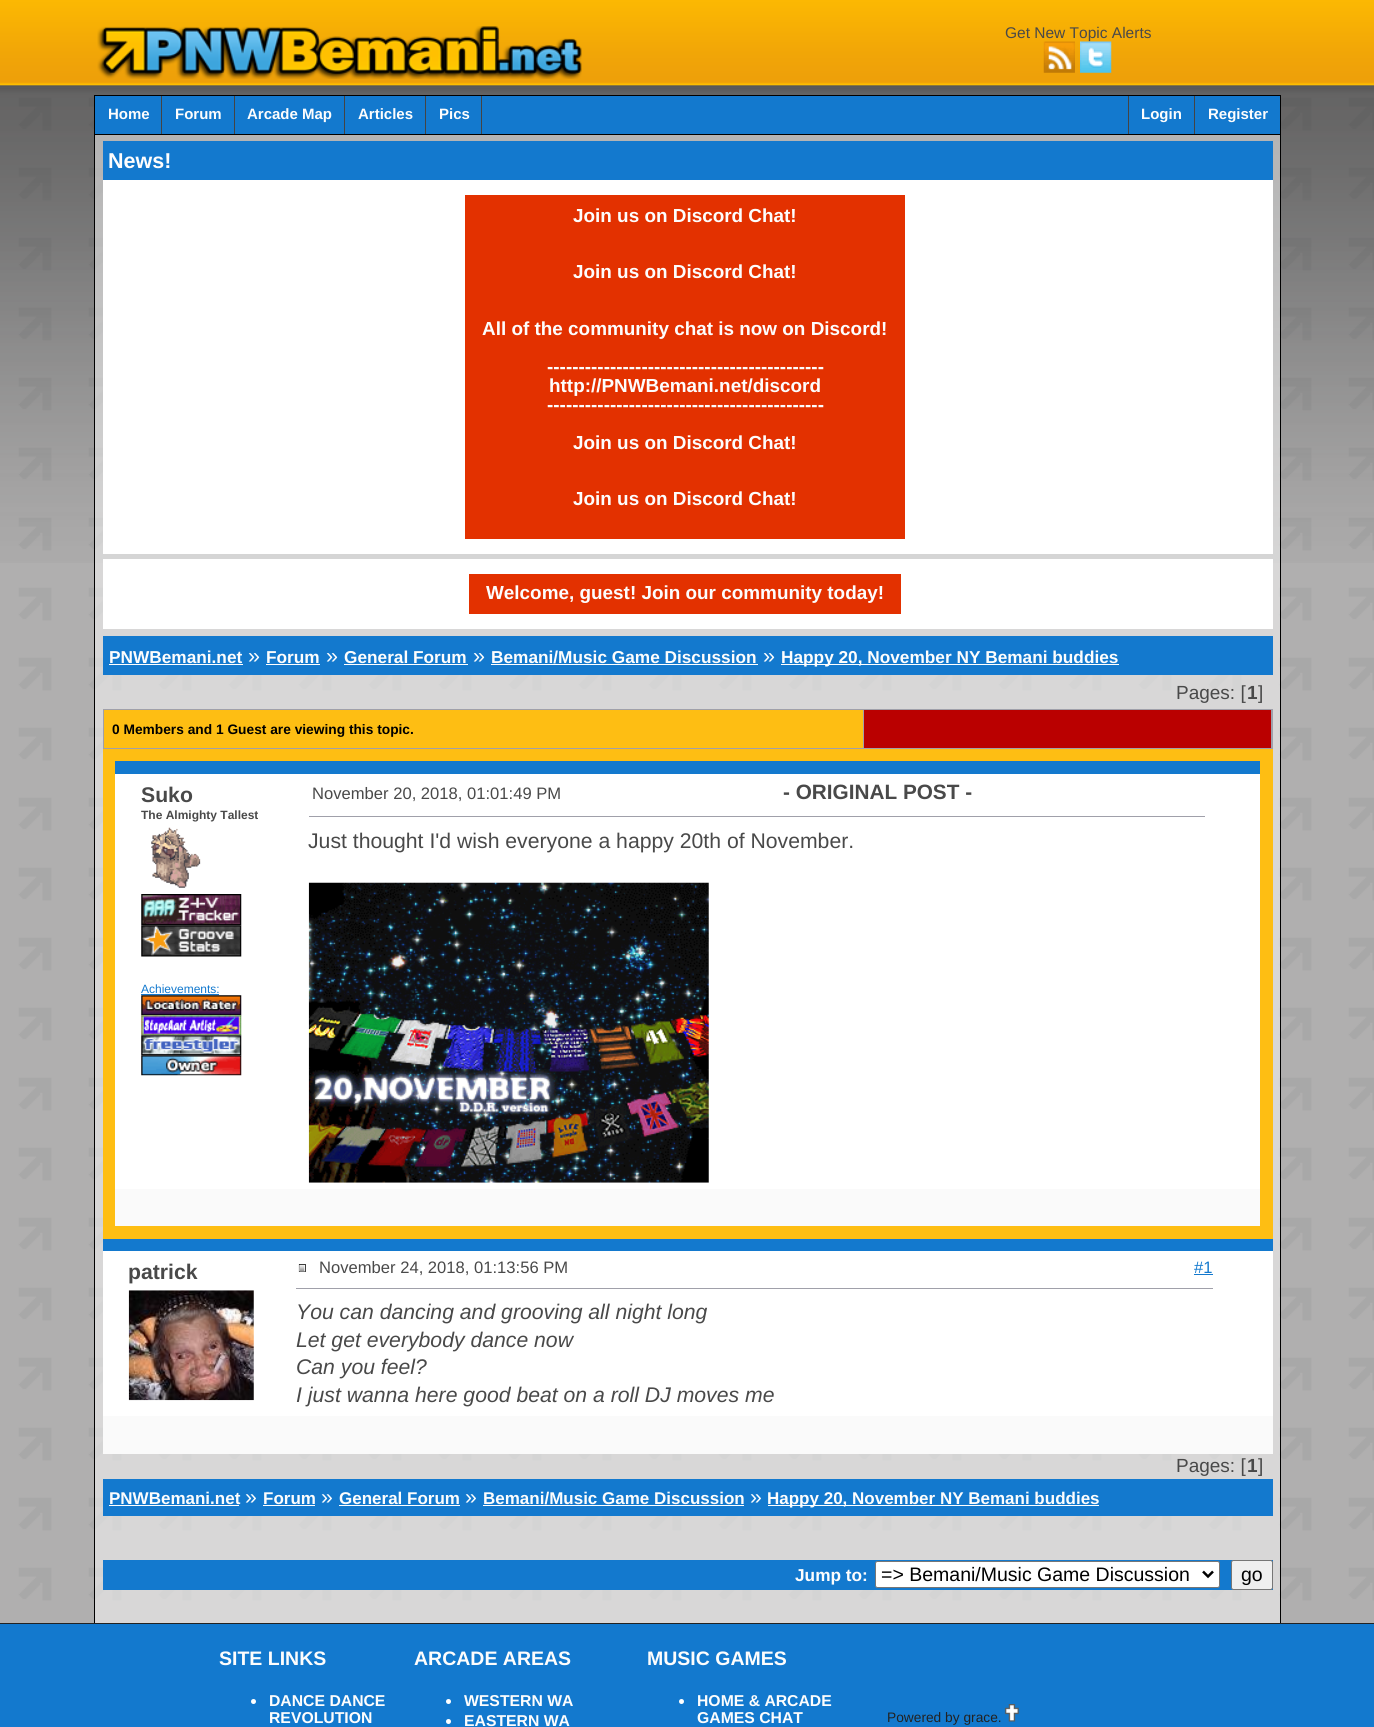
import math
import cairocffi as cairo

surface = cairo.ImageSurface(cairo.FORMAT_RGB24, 1374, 1727)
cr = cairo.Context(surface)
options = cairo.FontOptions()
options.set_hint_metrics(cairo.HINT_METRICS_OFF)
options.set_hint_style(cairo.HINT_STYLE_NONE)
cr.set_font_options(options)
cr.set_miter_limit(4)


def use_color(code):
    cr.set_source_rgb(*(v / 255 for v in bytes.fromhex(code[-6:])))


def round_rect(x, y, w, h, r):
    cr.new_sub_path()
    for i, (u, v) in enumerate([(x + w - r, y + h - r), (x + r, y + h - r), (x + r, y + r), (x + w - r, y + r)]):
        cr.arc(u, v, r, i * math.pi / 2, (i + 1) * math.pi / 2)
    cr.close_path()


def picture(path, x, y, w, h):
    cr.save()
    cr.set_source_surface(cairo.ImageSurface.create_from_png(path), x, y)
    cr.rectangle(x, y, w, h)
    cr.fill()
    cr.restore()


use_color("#ffffff")
cr.paint()
picture("img1.png", 0, 85, 1374, 1538)
picture("img2.png", 0, 0, 1374, 563)
picture("img3.png", 97, 26, 485, 53)
cr.select_font_face("Liberation Sans")
cr.set_font_size(15.5)
use_color("#494949")
cr.move_to(1005, 38)
cr.show_text("Get New Topic Alerts")
picture("img4.png", 1043, 41, 32, 32)
picture("img5.png", 1080, 41, 32, 32)
cr.set_source_rgba(1, 1, 1, 0.5)
cr.rectangle(95, 135, 1185, 1488)
cr.fill()
use_color("#000000")
cr.rectangle(1280, 95, 1, 1528)
cr.fill()
cr.rectangle(94, 95, 1, 1528)
cr.fill()
use_color("#1379ce")
cr.rectangle(95, 96, 1185, 38)
cr.fill()
use_color("#000000")
cr.rectangle(95, 95, 1185, 1)
cr.fill()
cr.rectangle(95, 134, 1185, 1)
cr.fill()
use_color("#444444")
cr.rectangle(161, 96, 1, 38)
cr.fill()
cr.select_font_face("Liberation Sans", cairo.FONT_SLANT_NORMAL, cairo.FONT_WEIGHT_BOLD)
cr.set_font_size(15)
use_color("#fdfdfd")
cr.move_to(108, 119)
cr.show_text("Home")
use_color("#444444")
cr.rectangle(234, 96, 1, 38)
cr.fill()
use_color("#fdfdfd")
cr.move_to(175, 119)
cr.show_text("Forum")
use_color("#444444")
cr.rectangle(344, 96, 1, 38)
cr.fill()
use_color("#fdfdfd")
cr.move_to(247, 119)
cr.show_text("Arcade Map")
use_color("#444444")
cr.rectangle(425, 96, 1, 38)
cr.fill()
use_color("#fdfdfd")
cr.move_to(358, 119)
cr.show_text("Articles")
use_color("#444444")
cr.rectangle(481, 96, 1, 38)
cr.fill()
use_color("#fdfdfd")
cr.move_to(439, 119)
cr.show_text("Pics")
use_color("#444444")
cr.rectangle(1128, 96, 1, 38)
cr.fill()
use_color("#fdfdfd")
cr.move_to(1141, 119)
cr.show_text("Login")
use_color("#444444")
cr.rectangle(1194, 96, 1, 38)
cr.fill()
use_color("#fdfdfd")
cr.move_to(1208, 119)
cr.show_text("Register")
use_color("#1379ce")
cr.rectangle(103, 141, 1170, 39)
cr.fill()
cr.set_font_size(21.5)
use_color("#fdfdfd")
cr.move_to(108, 168)
cr.show_text("News!")
use_color("#ffffff")
cr.rectangle(103, 180, 1170, 374)
cr.fill()
use_color("#e33100")
cr.rectangle(465, 195, 440, 344)
cr.fill()
cr.set_font_size(18.9)
use_color("#fdfdfd")
cr.move_to(573, 222)
cr.show_text("Join us on Discord Chat!")
cr.move_to(573, 278)
cr.show_text("Join us on Discord Chat!")
cr.move_to(482, 335)
cr.show_text("All of the community chat is now on Discord!")
cr.move_to(547, 373)
cr.show_text("--------------------------------------------")
cr.move_to(549, 392)
cr.show_text("http://PNWBemani.net/discord")
cr.move_to(547, 411)
cr.show_text("--------------------------------------------")
cr.move_to(573, 449)
cr.show_text("Join us on Discord Chat!")
cr.move_to(573, 505)
cr.show_text("Join us on Discord Chat!")
use_color("#ffffff")
cr.rectangle(103, 559, 1170, 70)
cr.fill()
use_color("#e33100")
cr.rectangle(469, 574, 432, 40)
cr.fill()
use_color("#fdfdfd")
cr.move_to(486, 599)
cr.show_text("Welcome, guest! Join our community today!")
use_color("#1379ce")
cr.rectangle(103, 636, 1170, 39)
cr.fill()
cr.set_font_size(17.25)
use_color("#fdfdfd")
cr.move_to(109, 663)
cr.show_text("PNWBemani.net")
use_color("#ffffff")
cr.rectangle(109, 664, 134, 1)
cr.fill()
cr.select_font_face("Liberation Sans")
cr.set_font_size(21.5)
use_color("#fdfdfd")
cr.move_to(248, 663)
cr.show_text("»")
cr.select_font_face("Liberation Sans", cairo.FONT_SLANT_NORMAL, cairo.FONT_WEIGHT_BOLD)
cr.set_font_size(17.25)
cr.move_to(266, 663)
cr.show_text("Forum")
use_color("#ffffff")
cr.rectangle(266, 664, 54, 1)
cr.fill()
cr.select_font_face("Liberation Sans")
cr.set_font_size(21.5)
use_color("#fdfdfd")
cr.move_to(326, 663)
cr.show_text("»")
cr.select_font_face("Liberation Sans", cairo.FONT_SLANT_NORMAL, cairo.FONT_WEIGHT_BOLD)
cr.set_font_size(17.25)
cr.move_to(344, 663)
cr.show_text("General Forum")
use_color("#ffffff")
cr.rectangle(344, 664, 124, 1)
cr.fill()
cr.select_font_face("Liberation Sans")
cr.set_font_size(21.5)
use_color("#fdfdfd")
cr.move_to(473, 663)
cr.show_text("»")
cr.select_font_face("Liberation Sans", cairo.FONT_SLANT_NORMAL, cairo.FONT_WEIGHT_BOLD)
cr.set_font_size(17.25)
cr.move_to(491, 663)
cr.show_text("Bemani/Music Game Discussion")
use_color("#ffffff")
cr.rectangle(491, 664, 267, 1)
cr.fill()
cr.select_font_face("Liberation Sans")
cr.set_font_size(21.5)
use_color("#fdfdfd")
cr.move_to(763, 663)
cr.show_text("»")
use_color("#ffffff")
cr.rectangle(781, 664, 338, 1)
cr.fill()
cr.select_font_face("Liberation Sans", cairo.FONT_SLANT_NORMAL, cairo.FONT_WEIGHT_BOLD)
cr.set_font_size(17.25)
use_color("#fdfdfd")
cr.move_to(781, 663)
cr.show_text("Happy 20, November NY Bemani buddies")
cr.select_font_face("Liberation Sans")
cr.set_font_size(19)
use_color("#494949")
cr.move_to(1176, 699)
cr.show_text("Pages: [")
cr.select_font_face("Liberation Sans", cairo.FONT_SLANT_NORMAL, cairo.FONT_WEIGHT_BOLD)
cr.move_to(1247, 699)
cr.show_text("1")
cr.select_font_face("Liberation Sans")
cr.move_to(1258, 699)
cr.show_text("]")
use_color("#a0a0aa")
cr.rectangle(103, 709, 1170, 40)
cr.fill()
use_color("#febe13")
cr.rectangle(104, 710, 759, 38)
cr.fill()
cr.select_font_face("Liberation Sans", cairo.FONT_SLANT_NORMAL, cairo.FONT_WEIGHT_BOLD)
cr.set_font_size(13.75)
use_color("#000000")
cr.move_to(112, 734)
cr.show_text("0 Members and 1 Guest are viewing this topic.")
use_color("#ba0000")
cr.rectangle(864, 710, 407, 38)
cr.fill()
cr.rectangle(109.5, 755.5, 1157, 477)
use_color("#febe13")
cr.set_line_width(13)
cr.stroke()
use_color("#1379ce")
cr.rectangle(115, 761, 1145, 13)
cr.fill()
use_color("#ffffff")
cr.rectangle(115, 774, 1145, 415)
cr.fill()
cr.set_font_size(21.2)
use_color("#494949")
cr.move_to(141, 802)
cr.show_text("Suko")
cr.set_font_size(12)
cr.move_to(141, 819)
cr.show_text("The Almighty Tallest")
picture("img6.png", 151, 827, 50, 61)
picture("img7.png", 141, 894, 101, 32)
picture("img8.png", 141, 925, 101, 32)
cr.select_font_face("Liberation Sans")
use_color("#1379ce")
cr.move_to(141, 993)
cr.show_text("Achievements:")
cr.rectangle(141, 994, 78, 1)
cr.fill()
picture("img9.png", 141, 995, 101, 21)
picture("img10.png", 141, 1015, 101, 21)
picture("img11.png", 141, 1035, 101, 21)
picture("img12.png", 141, 1055, 101, 21)
cr.set_font_size(16.6)
use_color("#494949")
cr.move_to(312, 799)
cr.show_text("November 20, 2018, 01:01:49 PM")
cr.select_font_face("Liberation Sans", cairo.FONT_SLANT_NORMAL, cairo.FONT_WEIGHT_BOLD)
cr.set_font_size(20.75)
cr.move_to(783, 799)
cr.show_text("- ORIGINAL POST -")
use_color("#a0a0aa")
cr.rectangle(309, 816, 896, 1)
cr.fill()
cr.select_font_face("Liberation Sans")
cr.set_font_size(21.2)
use_color("#494949")
cr.move_to(308, 848)
cr.show_text("Just thought I'd wish everyone a happy 20th of November.")
picture("img13.png", 308, 882, 401, 301)
use_color("#fafafa")
cr.rectangle(115, 1189, 1145, 37)
cr.fill()
use_color("#1379ce")
cr.rectangle(103, 1239, 1170, 12)
cr.fill()
use_color("#ffffff")
cr.rectangle(103, 1251, 1170, 165)
cr.fill()
cr.select_font_face("Liberation Sans", cairo.FONT_SLANT_NORMAL, cairo.FONT_WEIGHT_BOLD)
use_color("#494949")
cr.move_to(128, 1279)
cr.show_text("patrick")
picture("img14.png", 128, 1290, 126, 111)
picture("img15.png", 298, 1264, 8, 8)
cr.select_font_face("Liberation Sans")
cr.set_font_size(16.6)
cr.move_to(319, 1273)
cr.show_text("November 24, 2018, 01:13:56 PM")
use_color("#1379ce")
cr.move_to(1194, 1273)
cr.show_text("#1")
cr.rectangle(1194, 1274, 19, 1)
cr.fill()
use_color("#a0a0aa")
cr.rectangle(296, 1288, 917, 1)
cr.fill()
cr.select_font_face("Liberation Sans", cairo.FONT_SLANT_ITALIC)
cr.set_font_size(21.2)
use_color("#494949")
cr.move_to(296, 1319)
cr.show_text("You can dancing and grooving all night long")
cr.move_to(296, 1347)
cr.show_text("Let get everybody dance now")
cr.move_to(296, 1374)
cr.show_text("Can you feel?")
cr.move_to(296, 1402)
cr.show_text("I just wanna here good beat on a roll DJ moves me")
use_color("#fafafa")
cr.rectangle(103, 1416, 1170, 38)
cr.fill()
cr.select_font_face("Liberation Sans")
cr.set_font_size(19)
use_color("#494949")
cr.move_to(1176, 1472)
cr.show_text("Pages: [")
cr.select_font_face("Liberation Sans", cairo.FONT_SLANT_NORMAL, cairo.FONT_WEIGHT_BOLD)
cr.move_to(1247, 1472)
cr.show_text("1")
cr.select_font_face("Liberation Sans")
cr.move_to(1258, 1472)
cr.show_text("]")
use_color("#1379ce")
cr.rectangle(103, 1479, 1170, 37)
cr.fill()
cr.select_font_face("Liberation Sans", cairo.FONT_SLANT_NORMAL, cairo.FONT_WEIGHT_BOLD)
cr.set_font_size(17)
use_color("#fdfdfd")
cr.move_to(109, 1504)
cr.show_text("PNWBemani.net")
use_color("#ffffff")
cr.rectangle(109, 1505, 130, 1)
cr.fill()
cr.select_font_face("Liberation Sans")
cr.set_font_size(21.2)
use_color("#fdfdfd")
cr.move_to(245, 1504)
cr.show_text("»")
cr.select_font_face("Liberation Sans", cairo.FONT_SLANT_NORMAL, cairo.FONT_WEIGHT_BOLD)
cr.set_font_size(17)
cr.move_to(263, 1504)
cr.show_text("Forum")
use_color("#ffffff")
cr.rectangle(263, 1505, 52, 1)
cr.fill()
cr.select_font_face("Liberation Sans")
cr.set_font_size(21.2)
use_color("#fdfdfd")
cr.move_to(321, 1504)
cr.show_text("»")
cr.select_font_face("Liberation Sans", cairo.FONT_SLANT_NORMAL, cairo.FONT_WEIGHT_BOLD)
cr.set_font_size(17)
cr.move_to(339, 1504)
cr.show_text("General Forum")
use_color("#ffffff")
cr.rectangle(339, 1505, 121, 1)
cr.fill()
cr.select_font_face("Liberation Sans")
cr.set_font_size(21.2)
use_color("#fdfdfd")
cr.move_to(465, 1504)
cr.show_text("»")
cr.select_font_face("Liberation Sans", cairo.FONT_SLANT_NORMAL, cairo.FONT_WEIGHT_BOLD)
cr.set_font_size(17)
cr.move_to(483, 1504)
cr.show_text("Bemani/Music Game Discussion")
use_color("#ffffff")
cr.rectangle(483, 1505, 261, 1)
cr.fill()
cr.select_font_face("Liberation Sans")
cr.set_font_size(21.2)
use_color("#fdfdfd")
cr.move_to(750, 1504)
cr.show_text("»")
use_color("#ffffff")
cr.rectangle(768, 1505, 331, 1)
cr.fill()
cr.select_font_face("Liberation Sans", cairo.FONT_SLANT_NORMAL, cairo.FONT_WEIGHT_BOLD)
cr.set_font_size(17)
use_color("#fdfdfd")
cr.move_to(767, 1504)
cr.show_text("Happy 20, November NY Bemani buddies")
use_color("#1379ce")
cr.rectangle(103, 1560, 1170, 30)
cr.fill()
cr.set_font_size(17.25)
use_color("#fdfdfd")
cr.move_to(795, 1581)
cr.show_text("Jump to:")
use_color("#ffffff")
round_rect(875.5, 1561.5, 344, 26, 2)
cr.fill_preserve()
use_color("#767676")
cr.set_line_width(1)
cr.stroke()
cr.new_path()
cr.move_to(1203, 1571.5)
cr.line_to(1208, 1576.5)
cr.line_to(1213, 1571.5)
use_color("#000000")
cr.set_line_width(2.5)
cr.stroke()
cr.select_font_face("Liberation Sans")
cr.set_font_size(19.5)
cr.move_to(881, 1581)
cr.show_text("=> Bemani/Music Game Discussion")
use_color("#efefef")
round_rect(1231.5, 1560.5, 41, 29, 2)
cr.fill_preserve()
use_color("#767676")
cr.set_line_width(1)
cr.stroke()
use_color("#000000")
cr.move_to(1241, 1581)
cr.show_text("go")
use_color("#1379ce")
cr.rectangle(0, 1624, 1374, 103)
cr.fill()
use_color("#222222")
cr.rectangle(0, 1623, 1374, 1)
cr.fill()
cr.select_font_face("Liberation Sans", cairo.FONT_SLANT_NORMAL, cairo.FONT_WEIGHT_BOLD)
use_color("#fdfdfd")
cr.move_to(219, 1665)
cr.show_text("SITE LINKS")
use_color("#ffffff")
cr.new_path()
cr.arc(253.5, 1701.5, 2.5, 0, 2 * math.pi)
cr.fill()
cr.set_font_size(15.75)
use_color("#fdfdfd")
cr.move_to(269, 1706)
cr.show_text("DANCE DANCE")
cr.move_to(269, 1723)
cr.show_text("REVOLUTION")
cr.set_font_size(19.5)
cr.move_to(414, 1665)
cr.show_text("ARCADE AREAS")
use_color("#ffffff")
cr.new_path()
cr.arc(448.5, 1701.5, 2.5, 0, 2 * math.pi)
cr.fill()
cr.set_font_size(15.75)
use_color("#fdfdfd")
cr.move_to(464, 1706)
cr.show_text("WESTERN WA")
use_color("#ffffff")
cr.new_path()
cr.arc(448.5, 1721.5, 2.5, 0, 2 * math.pi)
cr.fill()
use_color("#fdfdfd")
cr.move_to(464, 1726)
cr.show_text("EASTERN WA")
cr.set_font_size(19.5)
cr.move_to(647, 1665)
cr.show_text("MUSIC GAMES")
use_color("#ffffff")
cr.new_path()
cr.arc(681.5, 1701.5, 2.5, 0, 2 * math.pi)
cr.fill()
cr.set_font_size(15.75)
use_color("#fdfdfd")
cr.move_to(697, 1706)
cr.show_text("HOME & ARCADE")
cr.move_to(697, 1723)
cr.show_text("GAMES CHAT")
cr.select_font_face("Liberation Sans")
cr.set_font_size(13.75)
use_color("#222222")
cr.move_to(887, 1722)
cr.show_text("Powered by grace.")
picture("img16.png", 1004, 1704, 15, 18)
surface.write_to_png("result.png")
